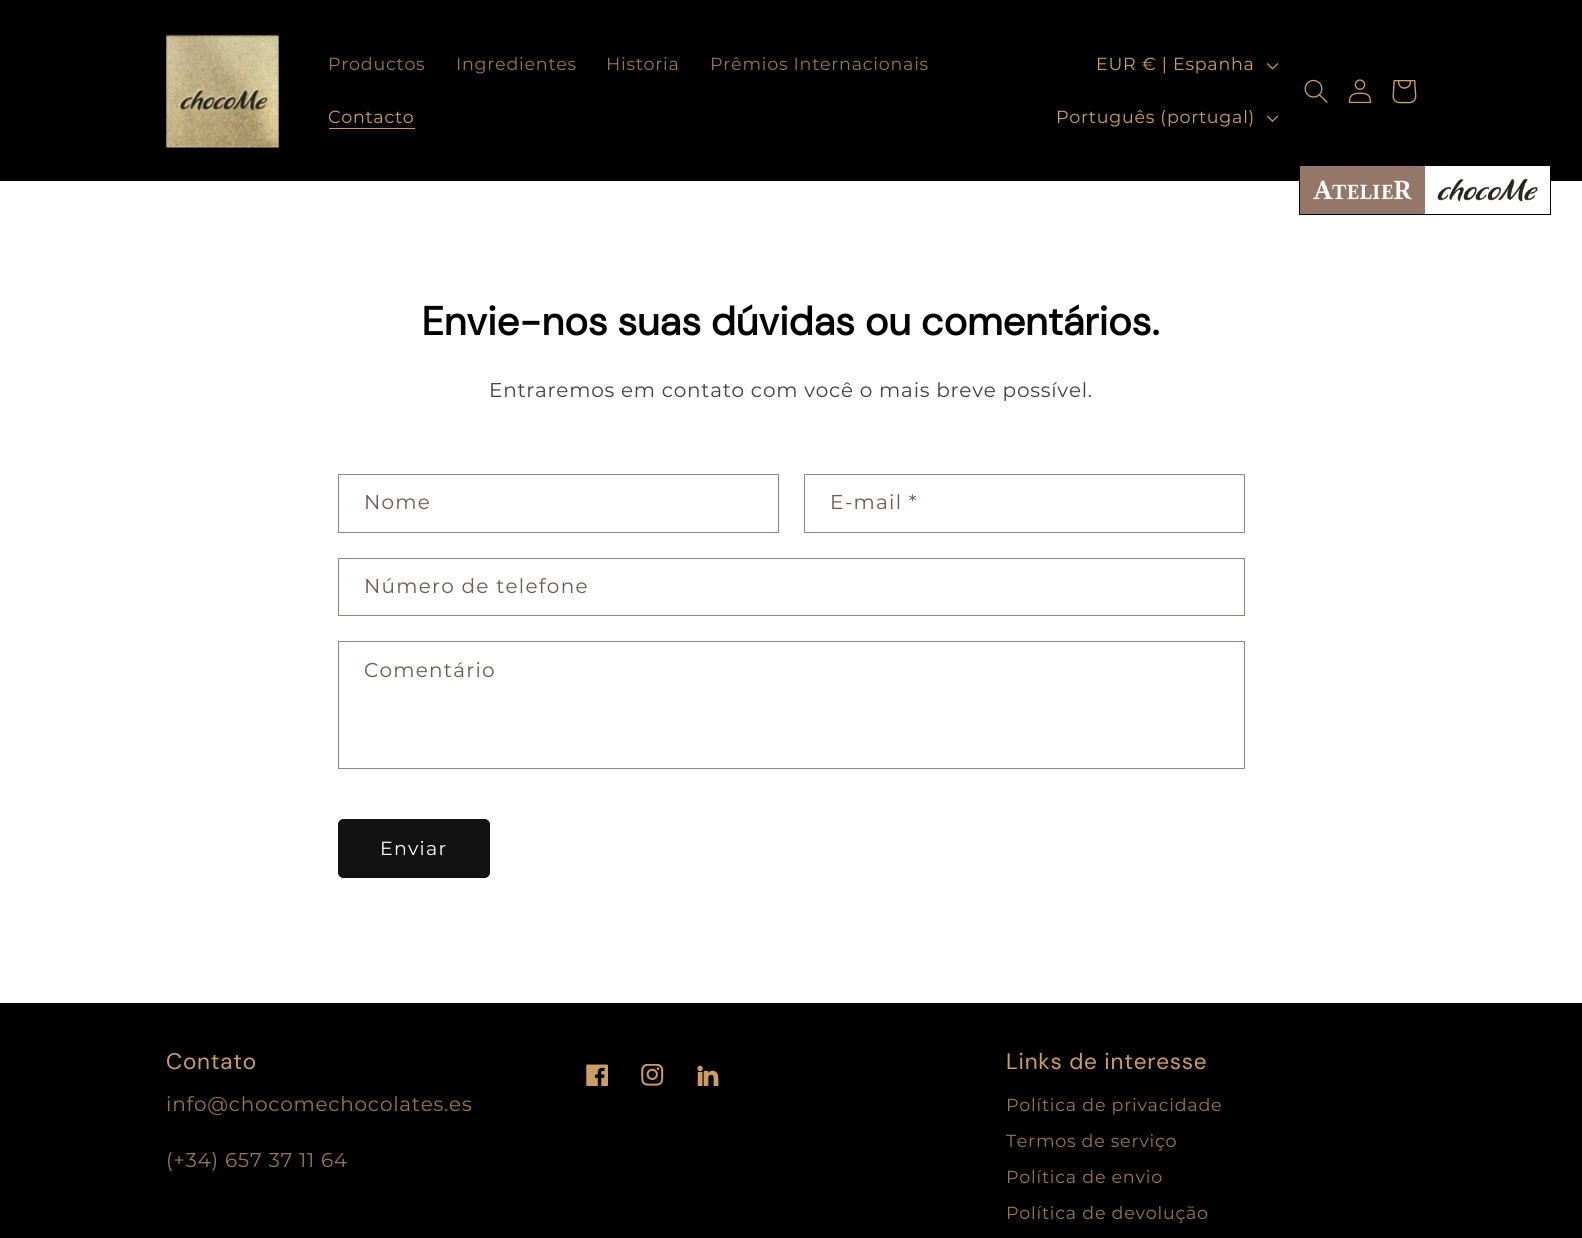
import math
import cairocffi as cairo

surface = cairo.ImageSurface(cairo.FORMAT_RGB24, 1582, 1238)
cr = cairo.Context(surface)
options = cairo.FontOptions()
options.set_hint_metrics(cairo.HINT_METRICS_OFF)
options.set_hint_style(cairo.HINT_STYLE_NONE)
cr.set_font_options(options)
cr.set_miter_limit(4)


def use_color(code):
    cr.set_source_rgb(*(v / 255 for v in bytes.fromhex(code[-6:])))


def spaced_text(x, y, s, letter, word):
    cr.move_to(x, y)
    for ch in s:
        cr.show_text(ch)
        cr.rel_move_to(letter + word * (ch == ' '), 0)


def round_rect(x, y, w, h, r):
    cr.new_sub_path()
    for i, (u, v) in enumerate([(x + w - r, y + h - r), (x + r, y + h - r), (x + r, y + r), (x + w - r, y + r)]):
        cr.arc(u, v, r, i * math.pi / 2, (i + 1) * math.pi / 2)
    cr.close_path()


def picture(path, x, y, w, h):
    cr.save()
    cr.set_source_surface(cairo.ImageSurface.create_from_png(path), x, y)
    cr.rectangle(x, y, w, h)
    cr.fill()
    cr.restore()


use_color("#ffffff")
cr.paint()
use_color("#000000")
cr.rectangle(0, 0, 1582, 181)
cr.fill()
picture("img1.png", 166, 34, 113, 114)
cr.select_font_face("Montserrat")
cr.set_font_size(17.5)
use_color("#9a764d")
spaced_text(328, 70, "Productos", 0.75, 0)
spaced_text(456, 70, "Ingredientes", 0.75, 0)
spaced_text(606, 70, "Historia", 0.75, 0)
spaced_text(710, 70, "Prêmios Internacionais", 0.75, 0)
use_color("#cd9d67")
spaced_text(328, 123, "Contacto", 0.75, 0)
cr.rectangle(329, 128, 86, 1)
cr.fill()
spaced_text(1096, 70, "EUR € | Espanha", 0.75, 0)
picture("img2.png", 1266, 63, 13, 7)
spaced_text(1056, 123, "Português (portugal)", 0.75, 0)
picture("img3.png", 1266, 115, 13, 7)
picture("img4.png", 1304, 79, 24, 24)
picture("img5.png", 1348, 79, 24, 25)
picture("img6.png", 1392, 80, 25, 24)
cr.rectangle(1299.5, 165.5, 251, 49)
use_color("#000000")
cr.set_line_width(1)
cr.stroke()
use_color("#957769")
cr.rectangle(1300, 166, 125, 48)
cr.fill()
picture("img7.png", 1313, 180, 99, 20)
use_color("#ffffff")
cr.rectangle(1425, 166, 125, 15)
cr.fill()
picture("img8.png", 1437, 178, 101, 24)
cr.select_font_face("DM Sans", cairo.FONT_SLANT_NORMAL, cairo.FONT_WEIGHT_BOLD)
cr.set_font_size(40)
use_color("#000000")
spaced_text(422, 335, "Envie-nos suas dúvidas ou comentários.", 0.75, 0)
cr.select_font_face("Montserrat")
cr.set_font_size(20)
use_color("#404040")
spaced_text(489, 397, "Entraremos em contato com você o mais breve possível.", 0.75, 0)
cr.rectangle(338.5, 474.5, 440, 58)
use_color("#8f8685")
cr.stroke()
use_color("#675a59")
spaced_text(364, 509, "Nome", 1.25, 0)
cr.rectangle(804.5, 474.5, 440, 58)
use_color("#8f8685")
cr.stroke()
use_color("#675a59")
spaced_text(830, 509, "E-mail *", 1.25, 0)
cr.rectangle(338.5, 558.5, 906, 57)
use_color("#8f8685")
cr.stroke()
use_color("#675a59")
spaced_text(364, 593, "Número de telefone", 1.25, 0)
cr.rectangle(338.5, 641.5, 906, 127)
use_color("#8f8685")
cr.stroke()
use_color("#675a59")
spaced_text(364, 677, "Comentário", 1.25, 0)
use_color("#121212")
round_rect(338, 819, 152, 59, 6)
cr.fill()
round_rect(338.5, 819.5, 151, 58, 5.5)
cr.stroke()
cr.set_font_size(19)
use_color("#ffffff")
spaced_text(380, 855, "Enviar", 1.25, 0)
use_color("#000000")
cr.rectangle(0, 1003, 1582, 235)
cr.fill()
cr.select_font_face("DM Sans")
cr.set_font_size(22.5)
use_color("#cd9d67")
spaced_text(166, 1069, "Contato", 0.75, 0)
cr.select_font_face("Montserrat")
cr.set_font_size(20)
use_color("#9a764d")
spaced_text(166, 1111, "info@chocomechocolates.es", 0.75, 0)
spaced_text(166, 1167, "(+34) 657 37 11 64", 0.75, 0)
picture("img9.png", 586, 1064, 22, 22)
picture("img10.png", 641, 1064, 23, 22)
picture("img11.png", 697, 1065, 22, 21)
cr.select_font_face("DM Sans")
cr.set_font_size(22.5)
use_color("#cd9d67")
spaced_text(1006, 1069, "Links de interesse", 0.75, 0)
cr.select_font_face("Montserrat")
cr.set_font_size(17.5)
use_color("#9a764d")
spaced_text(1006, 1111, "Política de privacidade", 0.75, 0)
spaced_text(1006, 1147, "Termos de serviço", 0.75, 0)
spaced_text(1006, 1183, "Política de envio", 0.75, 0)
spaced_text(1006, 1219, "Política de devolução", 0.75, 0)
surface.write_to_png("result.png")
